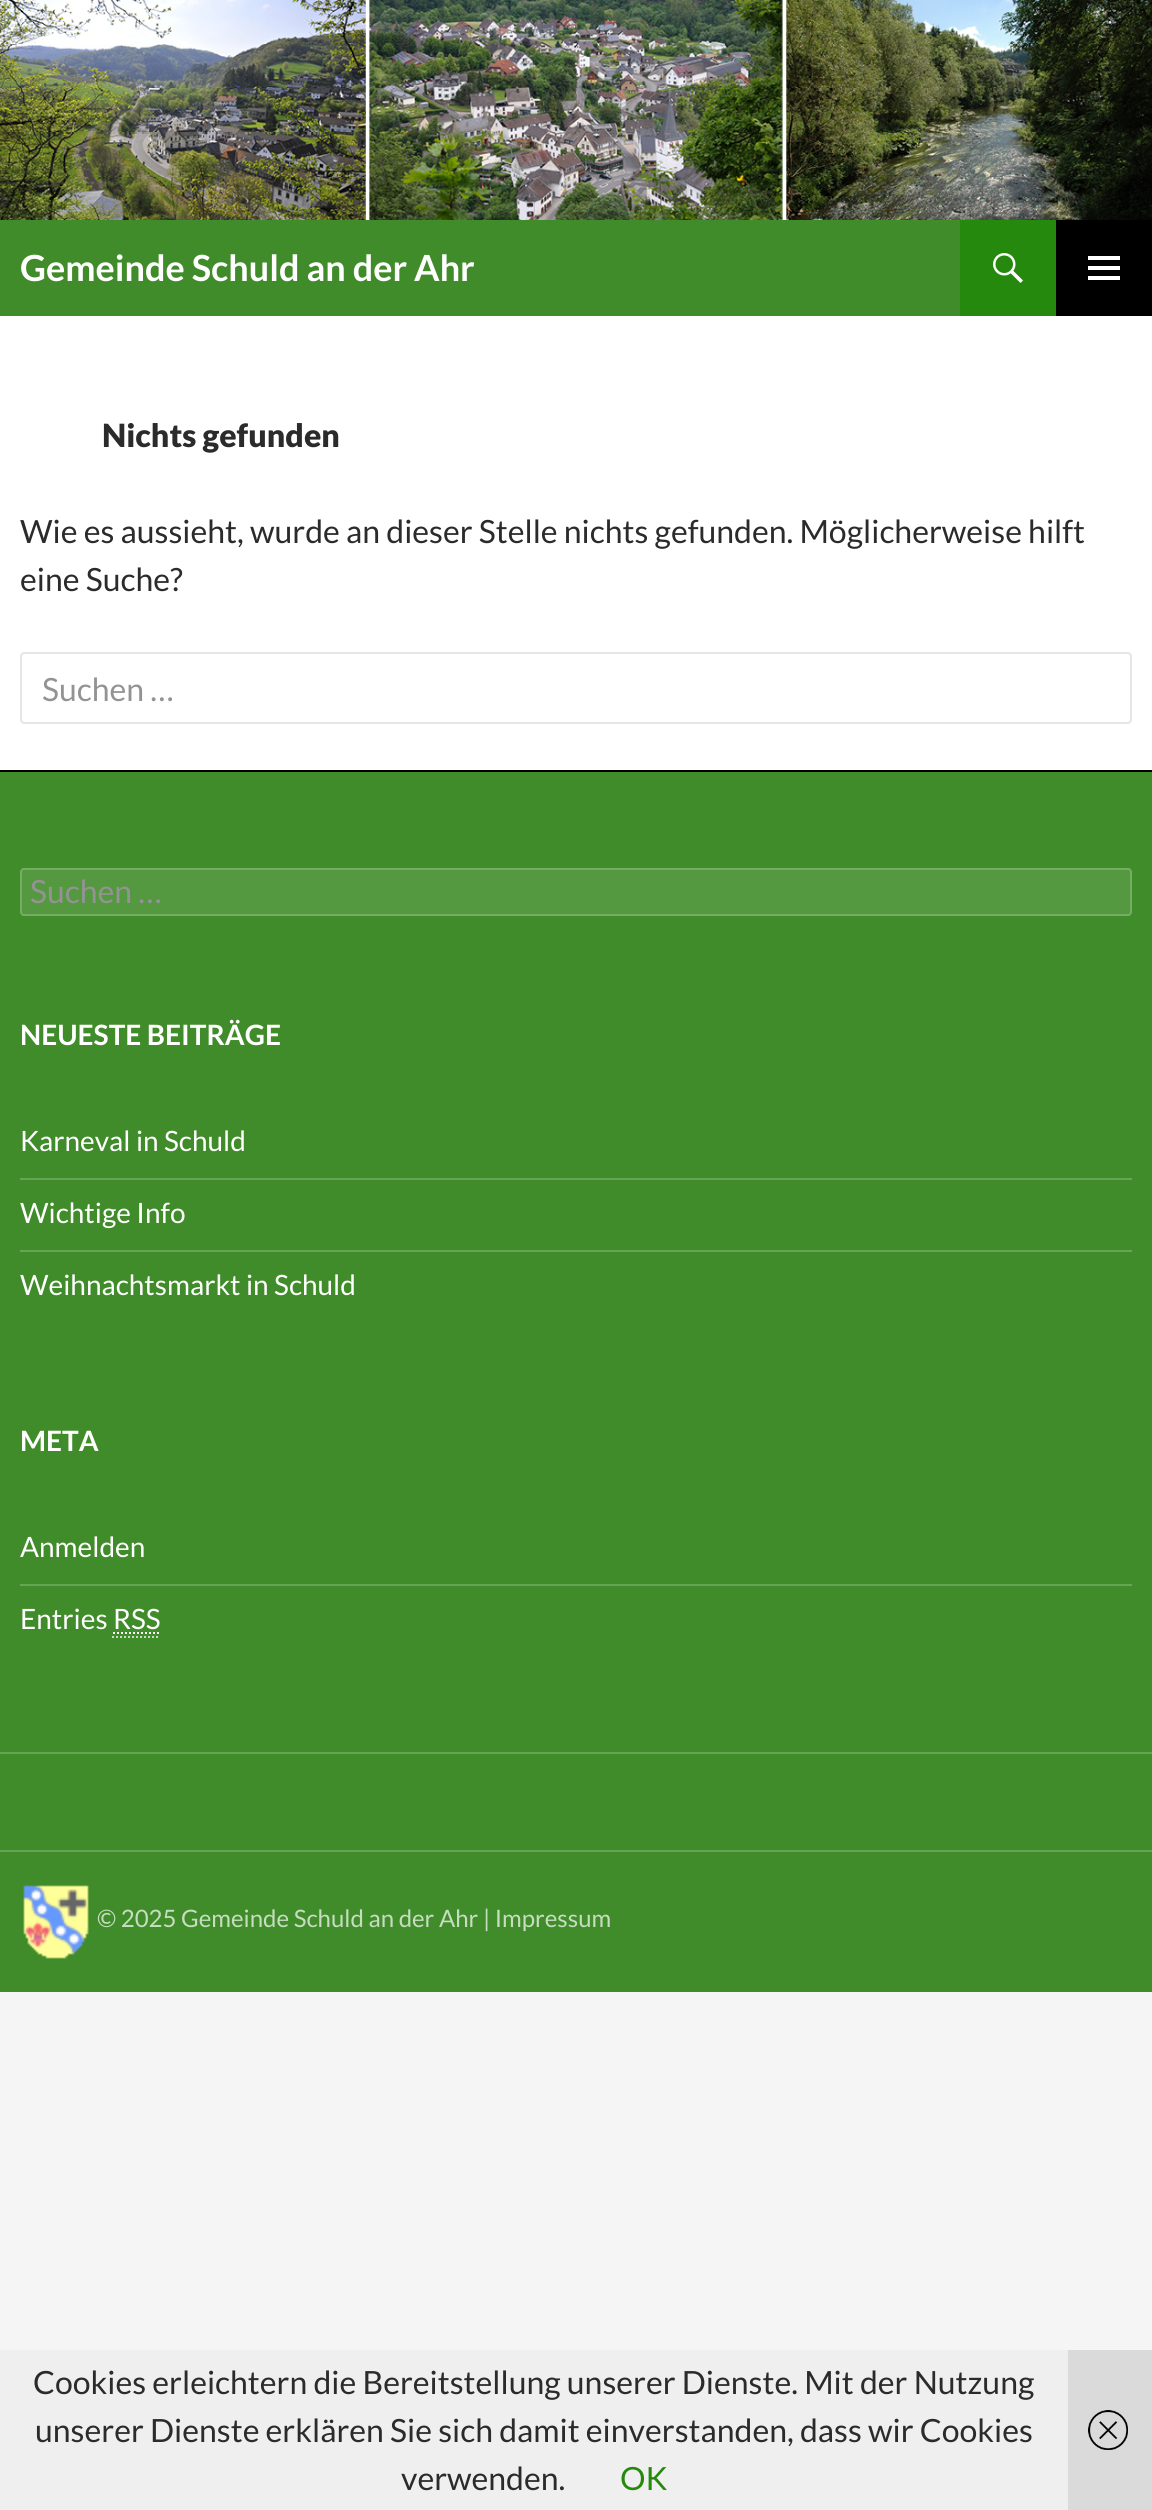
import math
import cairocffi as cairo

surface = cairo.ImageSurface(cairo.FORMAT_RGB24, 1152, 2510)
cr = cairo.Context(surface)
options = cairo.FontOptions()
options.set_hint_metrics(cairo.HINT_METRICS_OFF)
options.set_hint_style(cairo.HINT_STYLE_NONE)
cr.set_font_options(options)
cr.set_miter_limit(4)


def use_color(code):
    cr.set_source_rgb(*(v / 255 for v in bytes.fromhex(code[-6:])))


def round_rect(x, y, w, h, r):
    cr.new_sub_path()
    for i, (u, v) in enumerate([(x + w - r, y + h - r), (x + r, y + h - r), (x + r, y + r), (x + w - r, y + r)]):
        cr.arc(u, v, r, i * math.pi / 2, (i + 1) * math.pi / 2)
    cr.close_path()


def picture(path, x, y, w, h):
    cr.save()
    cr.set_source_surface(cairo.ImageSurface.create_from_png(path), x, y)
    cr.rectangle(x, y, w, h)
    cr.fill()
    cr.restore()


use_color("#f5f5f5")
cr.paint()
use_color("#ffffff")
cr.rectangle(0, 316, 1152, 454)
cr.fill()
picture("img1.png", 0, 0, 1152, 220)
use_color("#418c2a")
cr.rectangle(0, 220, 960, 96)
cr.fill()
cr.select_font_face("Lato", cairo.FONT_SLANT_NORMAL, cairo.FONT_WEIGHT_BOLD)
cr.set_font_size(36)
use_color("#ffffff")
cr.move_to(20, 281)
cr.show_text("Gemeinde Schuld an der Ahr")
use_color("#24890d")
cr.rectangle(960, 220, 96, 96)
cr.fill()
picture("img2.png", 993, 253, 30, 30)
use_color("#000000")
cr.rectangle(1056, 220, 96, 96)
cr.fill()
picture("img3.png", 1088, 256, 32, 24)
cr.select_font_face("Lato Black")
cr.set_font_size(32)
use_color("#2b2b2b")
cr.move_to(102, 447)
cr.show_text("Nichts gefunden")
cr.select_font_face("Lato")
cr.move_to(20, 543)
cr.show_text("Wie es aussieht, wurde an dieser Stelle nichts gefunden. Möglicherweise hilft")
cr.move_to(20, 591)
cr.show_text("eine Suche?")
round_rect(21, 653, 1110, 70, 3)
use_color("#e6e6e6")
cr.stroke()
use_color("#939393")
cr.move_to(42, 701)
cr.show_text("Suchen …")
use_color("#418c2a")
cr.rectangle(0, 772, 1152, 980)
cr.fill()
use_color("#000000")
cr.rectangle(0, 770, 1152, 2)
cr.fill()
use_color("#67a355")
cr.rectangle(0, 1752, 1152, 2)
cr.fill()
use_color("#54983f")
round_rect(20, 868, 1112, 48, 4)
cr.fill()
round_rect(21, 869, 1110, 46, 3)
cr.set_source_rgba(1, 1, 1, 0.2)
cr.stroke()
use_color("#939393")
cr.move_to(30, 903)
cr.show_text("Suchen …")
cr.select_font_face("Lato", cairo.FONT_SLANT_NORMAL, cairo.FONT_WEIGHT_BOLD)
cr.set_font_size(28)
use_color("#ffffff")
cr.move_to(20, 1045)
cr.show_text("NEUESTE BEITRÄGE")
cr.select_font_face("Lato")
cr.move_to(20, 1151)
cr.show_text("Karneval in Schuld")
use_color("#67a355")
cr.rectangle(20, 1178, 1112, 2)
cr.fill()
use_color("#ffffff")
cr.move_to(20, 1223)
cr.show_text("Wichtige Info")
use_color("#67a355")
cr.rectangle(20, 1250, 1112, 2)
cr.fill()
use_color("#ffffff")
cr.move_to(20, 1295)
cr.show_text("Weihnachtsmarkt in Schuld")
cr.select_font_face("Lato", cairo.FONT_SLANT_NORMAL, cairo.FONT_WEIGHT_BOLD)
cr.move_to(20, 1451)
cr.show_text("META")
cr.select_font_face("Lato")
cr.move_to(20, 1557)
cr.show_text("Anmelden")
use_color("#67a355")
cr.rectangle(20, 1584, 1112, 2)
cr.fill()
use_color("#ffffff")
cr.move_to(20, 1629)
cr.show_text("Entries RSS")
cr.new_path()
cr.move_to(112, 1637)
cr.line_to(160, 1637)
use_color("#c6ddbf")
cr.set_dash([2, 2])
cr.stroke()
cr.new_path()
cr.move_to(113, 1633)
cr.line_to(160.5, 1633)
use_color("#ffffff")
cr.stroke()
use_color("#418c2a")
cr.rectangle(0, 1754, 1152, 238)
cr.fill()
use_color("#67a355")
cr.rectangle(0, 1850, 1152, 2)
cr.fill()
picture("img4.png", 23, 1885, 66, 74)
cr.set_font_size(24)
use_color("#c6ddbf")
cr.move_to(97, 1927)
cr.show_text("© 2025 Gemeinde Schuld an der Ahr | Impressum")
use_color("#efefef")
cr.rectangle(0, 2350, 1068, 160)
cr.fill()
cr.set_font_size(32)
use_color("#2b2b2b")
cr.move_to(33, 2394)
cr.show_text("Cookies erleichtern die Bereitstellung unserer Dienste. Mit der Nutzung")
cr.move_to(35, 2442)
cr.show_text("unserer Dienste erklären Sie sich damit einverstanden, dass wir Cookies")
cr.move_to(401, 2490)
cr.show_text("verwenden.")
use_color("#24890d")
cr.move_to(620, 2490)
cr.show_text("OK")
use_color("#dadada")
cr.rectangle(1068, 2350, 84, 160)
cr.fill()
picture("img5.png", 1088, 2410, 40, 40)
surface.write_to_png("result.png")
